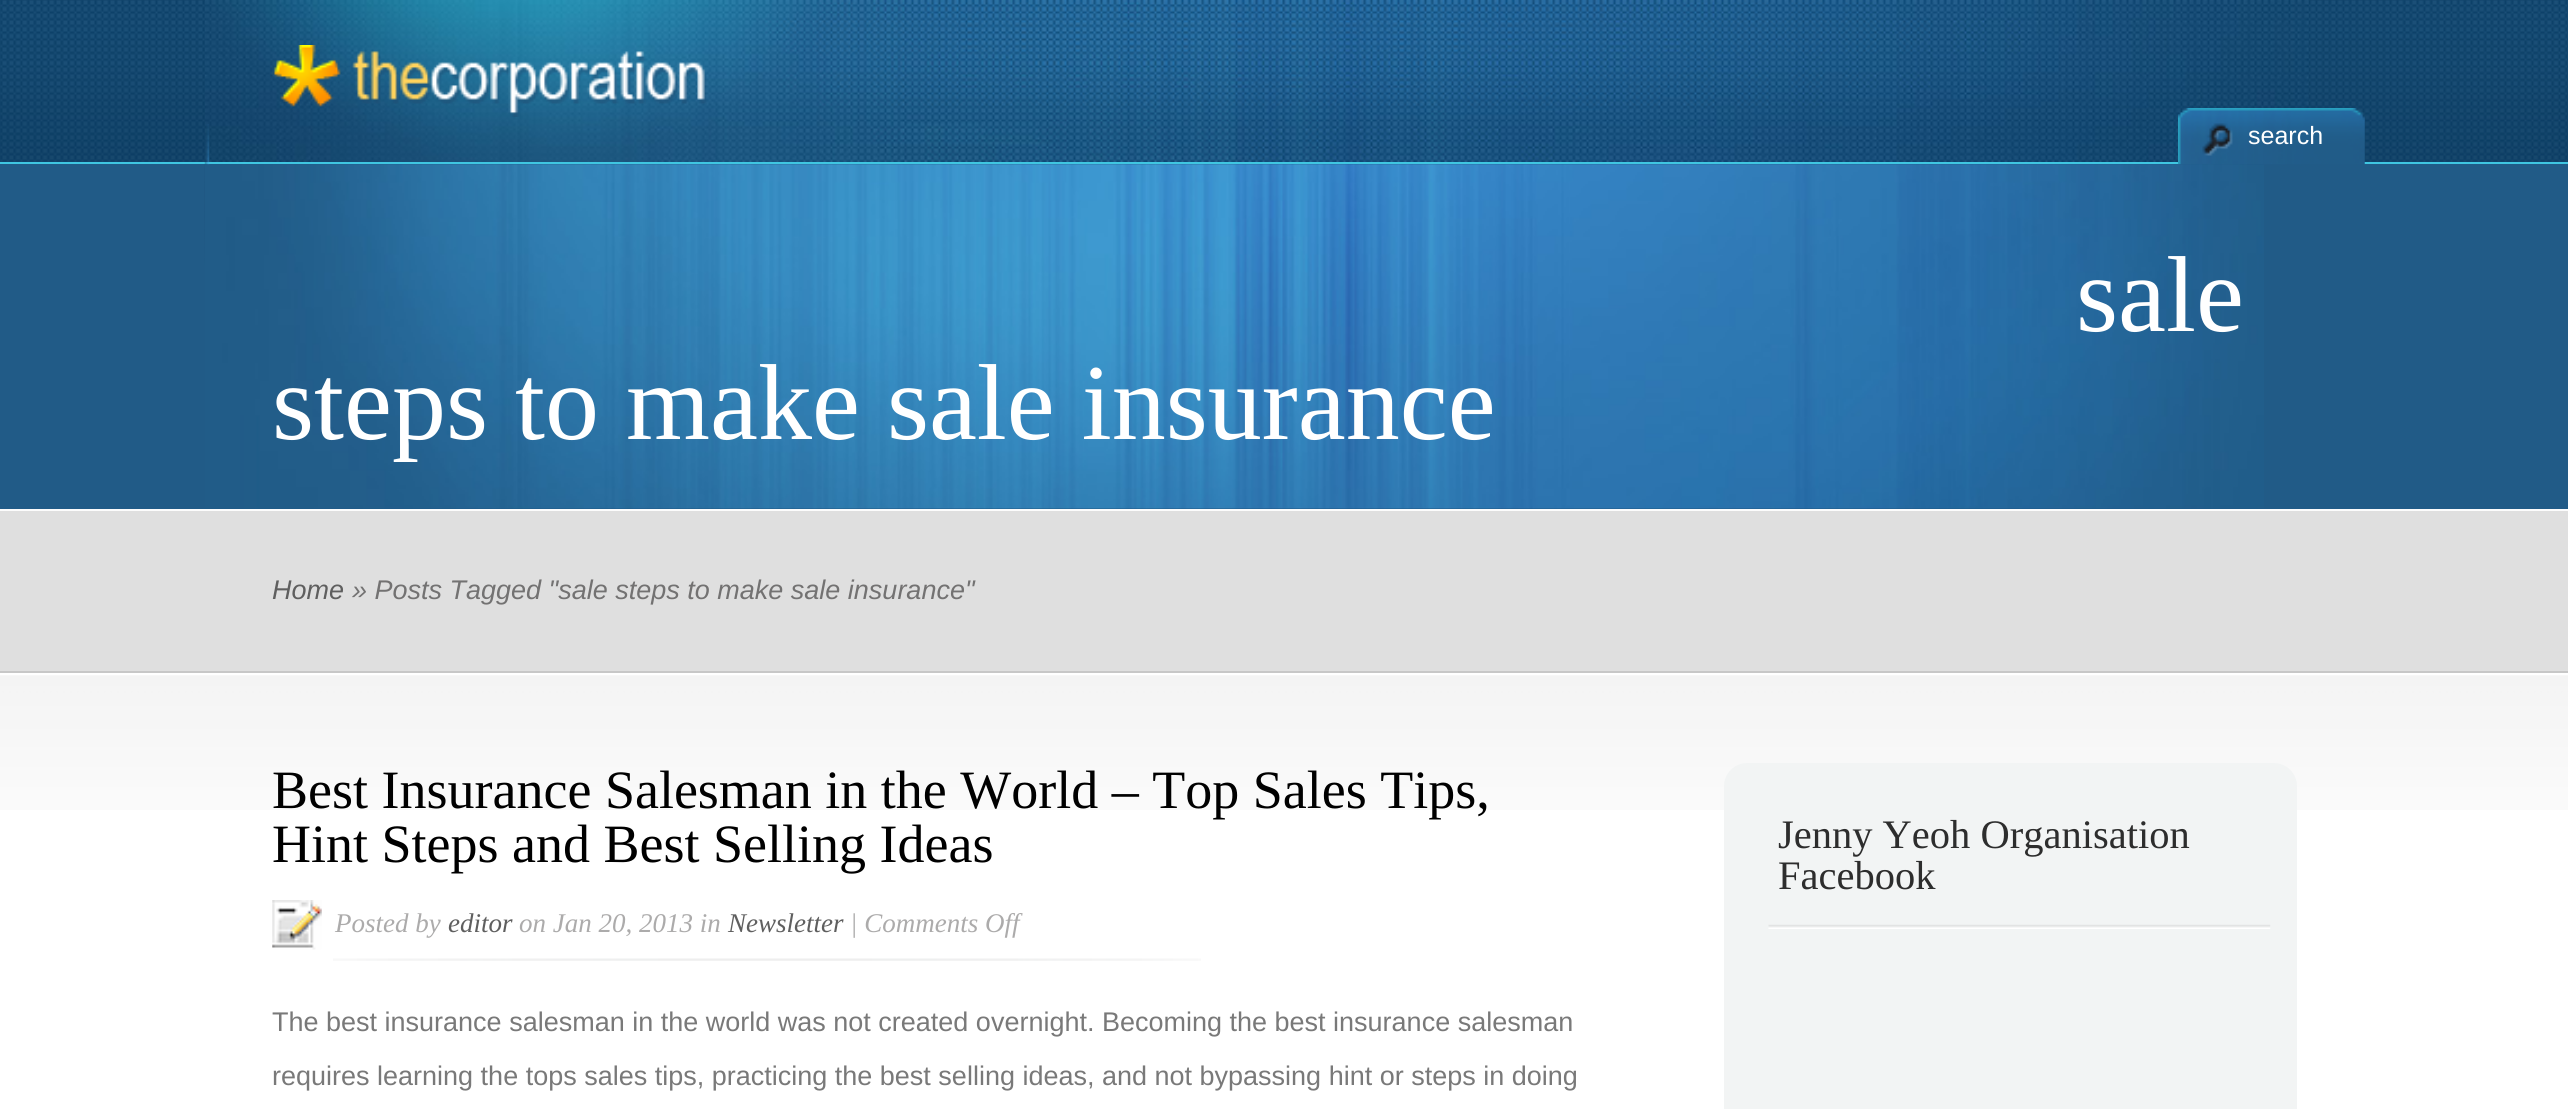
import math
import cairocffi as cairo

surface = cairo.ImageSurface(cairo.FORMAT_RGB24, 2568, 1109)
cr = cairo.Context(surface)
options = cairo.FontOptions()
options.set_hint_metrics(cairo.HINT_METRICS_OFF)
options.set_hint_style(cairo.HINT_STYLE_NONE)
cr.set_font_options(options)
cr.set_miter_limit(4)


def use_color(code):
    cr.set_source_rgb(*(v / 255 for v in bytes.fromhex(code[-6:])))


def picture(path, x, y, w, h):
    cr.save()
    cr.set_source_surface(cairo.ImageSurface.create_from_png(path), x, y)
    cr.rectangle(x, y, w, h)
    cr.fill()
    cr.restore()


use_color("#ffffff")
cr.paint()
picture("img1.png", 0, 0, 2568, 162)
use_color("#3fc6e1")
cr.rectangle(0, 162, 2568, 2)
cr.fill()
picture("img2.png", 205, 0, 2104, 162)
picture("img3.png", 272, 45, 435, 72)
use_color("#215b87")
cr.rectangle(0, 164, 2568, 345)
cr.fill()
picture("img4.png", 204, 124, 6, 141)
picture("img5.png", 2178, 108, 187, 57)
cr.select_font_face("Liberation Sans")
cr.set_font_size(25)
use_color("#ffffff")
cr.move_to(2248, 144)
cr.show_text("search")
picture("img6.png", 205, 164, 2059, 345)
cr.select_font_face("Liberation Serif")
cr.set_font_size(108)
cr.move_to(2076, 331)
cr.show_text("sale")
cr.move_to(272, 439)
cr.show_text("steps to make sale insurance")
use_color("#dfdfdf")
cr.rectangle(0, 511, 2568, 160)
cr.fill()
use_color("#fcfcfc")
cr.rectangle(0, 509, 2568, 2)
cr.fill()
cr.select_font_face("Liberation Sans", cairo.FONT_SLANT_ITALIC)
cr.set_font_size(27)
use_color("#5f5f5f")
cr.move_to(272, 599)
cr.show_text("Home")
use_color("#737272")
cr.move_to(352, 599)
cr.show_text("» Posts Tagged \"sale steps to make sale insurance\"")
picture("img7.png", 0, 675, 2568, 135)
use_color("#c7c7c7")
cr.rectangle(0, 671, 2568, 2)
cr.fill()
cr.select_font_face("Liberation Serif")
cr.set_font_size(54)
use_color("#000000")
cr.move_to(272, 808)
cr.show_text("Best Insurance Salesman in the World – Top Sales Tips,")
cr.move_to(272, 862)
cr.show_text("Hint Steps and Best Selling Ideas")
picture("img8.png", 333, 958, 868, 3)
picture("img9.png", 272, 900, 50, 50)
cr.select_font_face("Liberation Serif", cairo.FONT_SLANT_ITALIC)
cr.set_font_size(27)
use_color("#acabab")
cr.move_to(335, 932)
cr.show_text("Posted by")
use_color("#5f5f5f")
cr.move_to(448, 932)
cr.show_text("editor")
use_color("#acabab")
cr.move_to(519, 932)
cr.show_text("on Jan 20, 2013 in")
use_color("#5f5f5f")
cr.move_to(728, 932)
cr.show_text("Newsletter")
use_color("#acabab")
cr.move_to(850, 932)
cr.show_text("| Comments Off")
cr.select_font_face("Liberation Sans")
use_color("#797979")
cr.move_to(272, 1031)
cr.show_text("The best insurance salesman in the world was not created overnight. Becoming the best insurance salesman")
cr.move_to(272, 1085)
cr.show_text("requires learning the tops sales tips, practicing the best selling ideas, and not bypassing hint or steps in doing")
use_color("#f2f4f4")
cr.new_path()
cr.move_to(1747, 763)
cr.line_to(2274, 763)
cr.curve_to(2286.5, 763, 2297, 773.5, 2297, 786)
cr.line_to(2297, 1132)
cr.line_to(1724, 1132)
cr.line_to(1724, 786)
cr.curve_to(1724, 773.5, 1734.5, 763, 1747, 763)
cr.close_path()
cr.fill()
picture("img10.png", 1768, 924, 503, 5)
cr.select_font_face("Liberation Serif")
cr.set_font_size(40.5)
use_color("#2d2d2d")
cr.move_to(1778, 848)
cr.show_text("Jenny Yeoh Organisation")
cr.move_to(1778, 889)
cr.show_text("Facebook")
surface.write_to_png("result.png")
